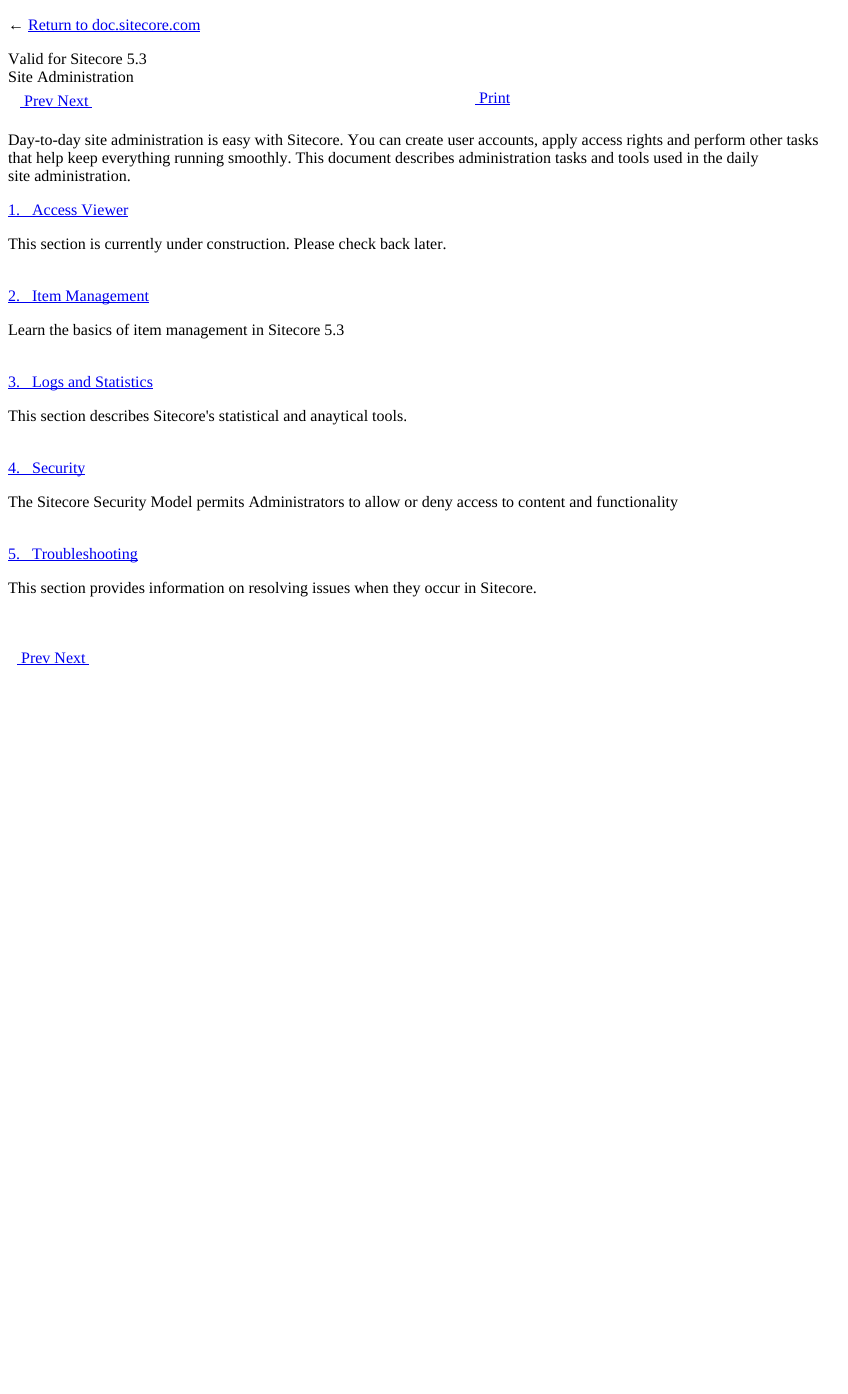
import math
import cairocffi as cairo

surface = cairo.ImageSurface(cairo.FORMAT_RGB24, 848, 1394)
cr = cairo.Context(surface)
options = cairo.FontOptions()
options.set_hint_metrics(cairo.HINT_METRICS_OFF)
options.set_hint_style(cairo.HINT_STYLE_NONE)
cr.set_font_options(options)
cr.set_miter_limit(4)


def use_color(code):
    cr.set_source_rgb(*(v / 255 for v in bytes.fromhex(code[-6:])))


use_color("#ffffff")
cr.paint()
cr.select_font_face("Liberation Serif")
cr.set_font_size(16)
use_color("#000000")
cr.move_to(8, 30)
cr.show_text("←")
use_color("#0000ee")
cr.move_to(28, 30)
cr.show_text("Return to doc.sitecore.com")
cr.rectangle(28, 31, 172, 1)
cr.fill()
use_color("#000000")
cr.move_to(8, 64)
cr.show_text("Valid for Sitecore 5.3")
cr.move_to(8, 82)
cr.show_text("Site Administration")
use_color("#0000ee")
cr.move_to(24, 106)
cr.show_text("Prev Next")
cr.rectangle(20, 107, 72, 1)
cr.fill()
cr.move_to(479, 103)
cr.show_text("Print")
cr.rectangle(475, 104, 35, 1)
cr.fill()
use_color("#000000")
cr.move_to(8, 145)
cr.show_text("Day-to-day site administration is easy with Sitecore. You can create user accounts, apply access rights and perform other tasks")
cr.move_to(8, 163)
cr.show_text("that help keep everything running smoothly. This document describes administration tasks and tools used in the daily")
cr.move_to(8, 181)
cr.show_text("site administration.")
use_color("#0000ee")
cr.move_to(8, 215)
cr.show_text("1.")
cr.rectangle(8, 216, 120, 1)
cr.fill()
cr.move_to(32, 215)
cr.show_text("Access Viewer")
use_color("#000000")
cr.move_to(8, 249)
cr.show_text("This section is currently under construction. Please check back later.")
use_color("#0000ee")
cr.move_to(8, 301)
cr.show_text("2.")
cr.rectangle(8, 302, 141, 1)
cr.fill()
cr.move_to(32, 301)
cr.show_text("Item Management")
use_color("#000000")
cr.move_to(8, 335)
cr.show_text("Learn the basics of item management in Sitecore 5.3")
use_color("#0000ee")
cr.move_to(8, 387)
cr.show_text("3.")
cr.rectangle(8, 388, 145, 1)
cr.fill()
cr.move_to(32, 387)
cr.show_text("Logs and Statistics")
use_color("#000000")
cr.move_to(8, 421)
cr.show_text("This section describes Sitecore's statistical and anaytical tools.")
use_color("#0000ee")
cr.move_to(8, 473)
cr.show_text("4.")
cr.rectangle(8, 474, 77, 1)
cr.fill()
cr.move_to(32, 473)
cr.show_text("Security")
use_color("#000000")
cr.move_to(8, 507)
cr.show_text("The Sitecore Security Model permits Administrators to allow or deny access to content and functionality")
use_color("#0000ee")
cr.move_to(8, 559)
cr.show_text("5.")
cr.rectangle(8, 560, 130, 1)
cr.fill()
cr.move_to(32, 559)
cr.show_text("Troubleshooting")
use_color("#000000")
cr.move_to(8, 593)
cr.show_text("This section provides information on resolving issues when they occur in Sitecore.")
use_color("#0000ee")
cr.move_to(21, 663)
cr.show_text("Prev Next")
cr.rectangle(17, 664, 72, 1)
cr.fill()
surface.write_to_png("result.png")
